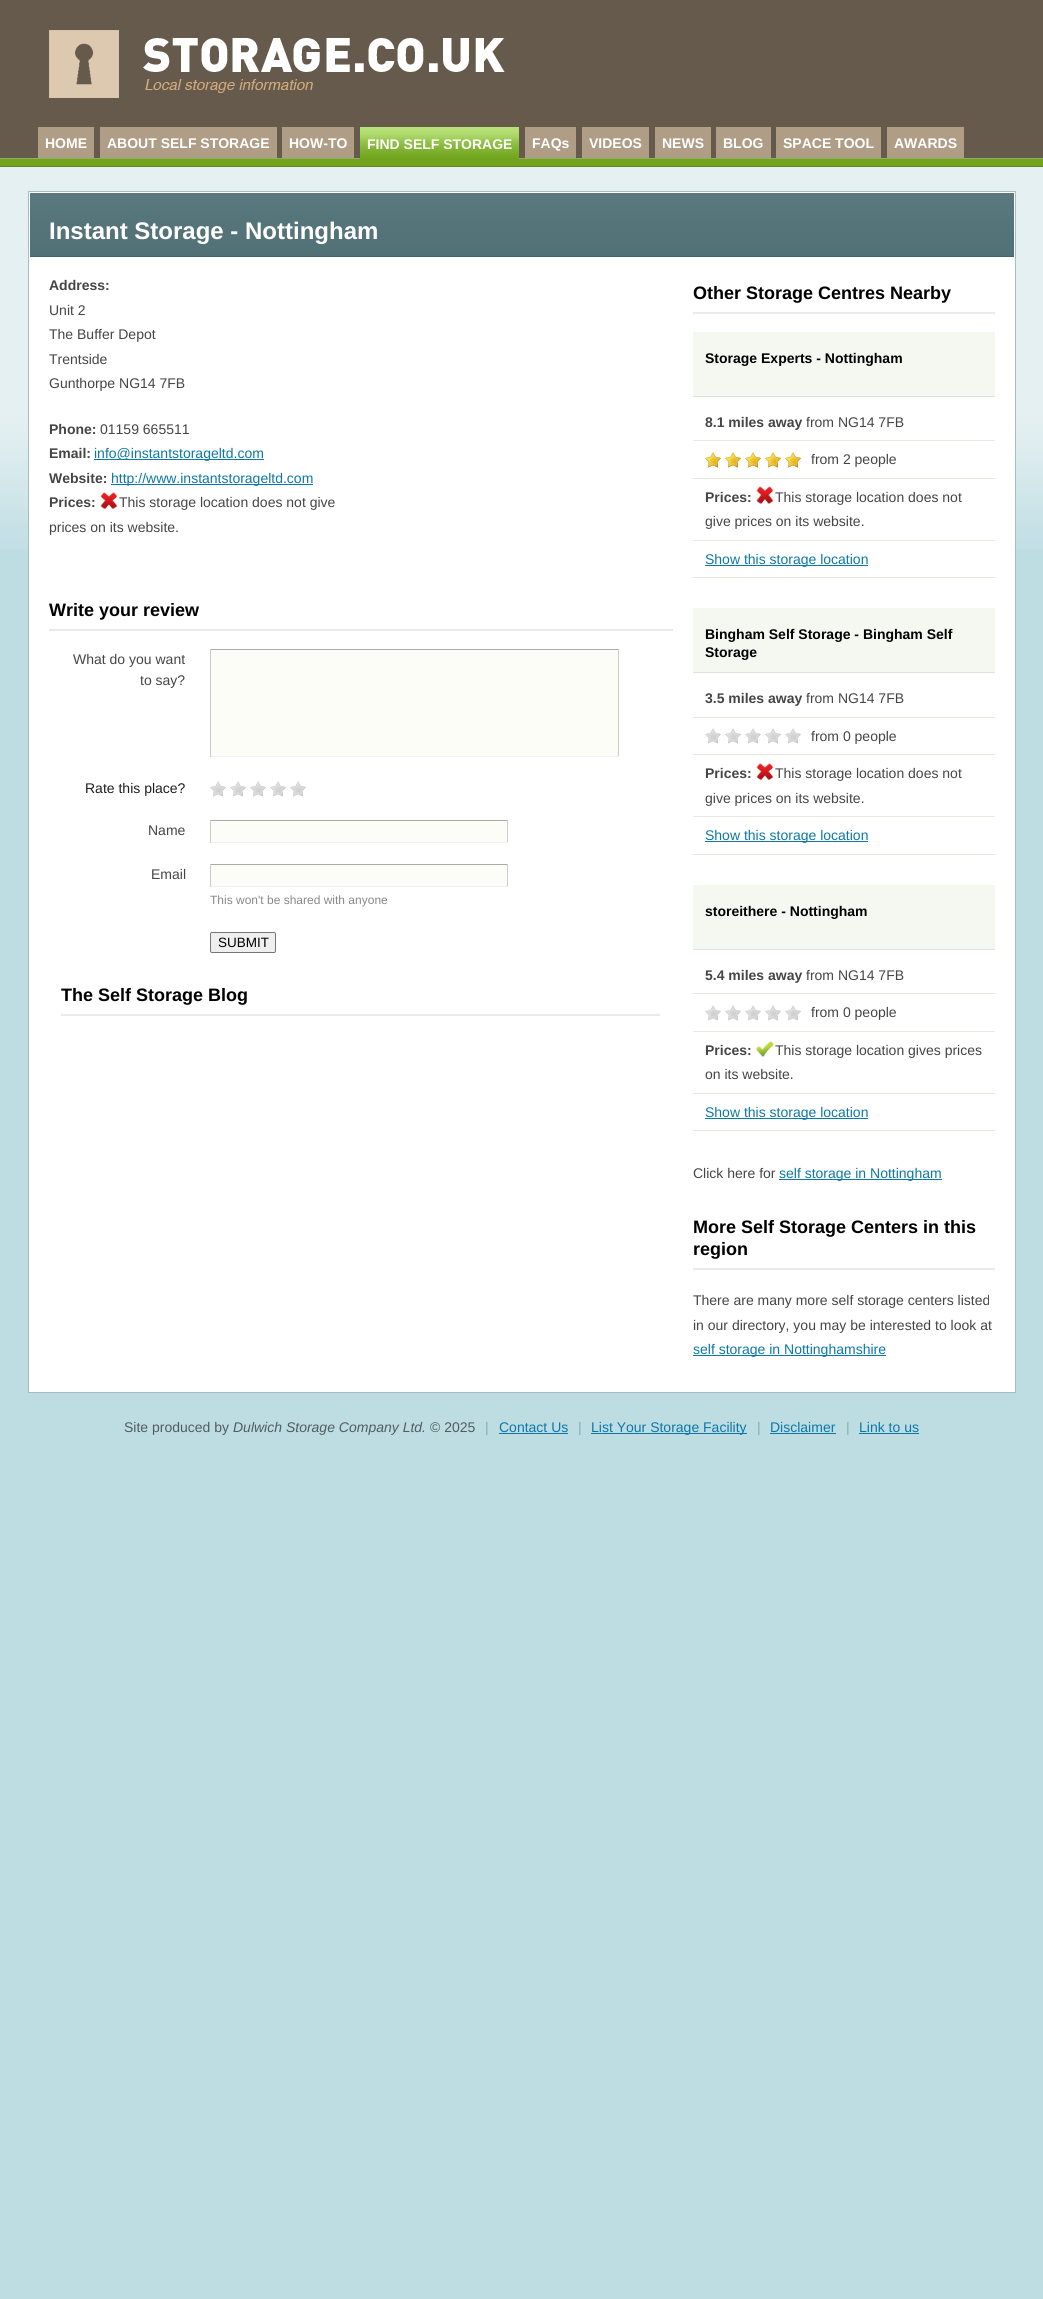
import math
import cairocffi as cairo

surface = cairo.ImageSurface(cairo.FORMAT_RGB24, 1043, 2299)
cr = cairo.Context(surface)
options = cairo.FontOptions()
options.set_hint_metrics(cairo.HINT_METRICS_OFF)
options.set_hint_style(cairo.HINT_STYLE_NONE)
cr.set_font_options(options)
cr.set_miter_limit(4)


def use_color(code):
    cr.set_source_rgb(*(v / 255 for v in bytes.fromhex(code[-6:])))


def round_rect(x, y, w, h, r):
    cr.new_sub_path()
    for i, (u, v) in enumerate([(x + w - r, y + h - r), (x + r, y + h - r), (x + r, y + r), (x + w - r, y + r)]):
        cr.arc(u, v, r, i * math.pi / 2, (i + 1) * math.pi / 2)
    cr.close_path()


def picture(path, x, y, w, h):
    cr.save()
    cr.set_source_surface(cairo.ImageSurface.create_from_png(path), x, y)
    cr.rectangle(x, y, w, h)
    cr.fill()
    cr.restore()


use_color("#bddde3")
cr.paint()
use_color("#655a4c")
cr.rectangle(0, 0, 1043, 158)
cr.fill()
use_color("#94ad64")
cr.rectangle(0, 158, 1043, 1)
cr.fill()
use_color("#6fa41c")
cr.rectangle(0, 159, 1043, 7)
cr.fill()
picture("img1.png", 49, 30, 456, 68)
use_color("#b09d86")
cr.rectangle(38, 127, 56, 31)
cr.fill()
cr.select_font_face("Liberation Sans", cairo.FONT_SLANT_NORMAL, cairo.FONT_WEIGHT_BOLD)
cr.set_font_size(14)
use_color("#ffffff")
cr.move_to(45, 148)
cr.show_text("HOME")
use_color("#b09d86")
cr.rectangle(100, 127, 177, 31)
cr.fill()
use_color("#ffffff")
cr.move_to(107, 148)
cr.show_text("ABOUT SELF STORAGE")
use_color("#b09d86")
cr.rectangle(282, 127, 72, 31)
cr.fill()
use_color("#ffffff")
cr.move_to(289, 148)
cr.show_text("HOW-TO")
use_color("#6fa41c")
cr.rectangle(360, 158, 159, 1)
cr.fill()
picture("img2.png", 360, 127, 159, 31)
use_color("#ffffff")
cr.move_to(367, 149)
cr.show_text("FIND SELF STORAGE")
use_color("#b09d86")
cr.rectangle(525, 127, 51, 31)
cr.fill()
use_color("#ffffff")
cr.move_to(532, 148)
cr.show_text("FAQs")
use_color("#b09d86")
cr.rectangle(582, 127, 67, 31)
cr.fill()
use_color("#ffffff")
cr.move_to(589, 148)
cr.show_text("VIDEOS")
use_color("#b09d86")
cr.rectangle(655, 127, 56, 31)
cr.fill()
use_color("#ffffff")
cr.move_to(662, 148)
cr.show_text("NEWS")
use_color("#b09d86")
cr.rectangle(716, 127, 55, 31)
cr.fill()
use_color("#ffffff")
cr.move_to(723, 148)
cr.show_text("BLOG")
use_color("#b09d86")
cr.rectangle(776, 127, 105, 31)
cr.fill()
use_color("#ffffff")
cr.move_to(783, 148)
cr.show_text("SPACE TOOL")
use_color("#b09d86")
cr.rectangle(887, 127, 77, 31)
cr.fill()
use_color("#ffffff")
cr.move_to(894, 148)
cr.show_text("AWARDS")
picture("img3.png", 0, 167, 1043, 382)
use_color("#5f8a1c")
cr.rectangle(0, 166, 1043, 1)
cr.fill()
use_color("#ffffff")
cr.rectangle(28.5, 191.5, 987, 1201)
cr.fill_preserve()
use_color("#a8bbbe")
cr.set_line_width(1)
cr.stroke()
picture("img4.png", 30, 193, 984, 63)
use_color("#466369")
cr.rectangle(30, 256, 984, 1)
cr.fill()
cr.set_font_size(24)
use_color("#ffffff")
cr.move_to(49, 239)
cr.show_text("Instant Storage - Nottingham")
cr.set_font_size(14)
use_color("#454545")
cr.move_to(49, 290)
cr.show_text("Address:")
cr.select_font_face("Liberation Sans")
cr.move_to(49, 315)
cr.show_text("Unit 2")
cr.move_to(49, 339)
cr.show_text("The Buffer Depot")
cr.move_to(49, 364)
cr.show_text("Trentside")
cr.move_to(49, 388)
cr.show_text("Gunthorpe NG14 7FB")
cr.select_font_face("Liberation Sans", cairo.FONT_SLANT_NORMAL, cairo.FONT_WEIGHT_BOLD)
cr.move_to(49, 434)
cr.show_text("Phone:")
cr.select_font_face("Liberation Sans")
cr.move_to(100, 434)
cr.show_text("01159 665511")
cr.select_font_face("Liberation Sans", cairo.FONT_SLANT_NORMAL, cairo.FONT_WEIGHT_BOLD)
cr.move_to(49, 458)
cr.show_text("Email:")
use_color("#0c78a6")
cr.rectangle(94, 459, 170, 1)
cr.fill()
cr.select_font_face("Liberation Sans")
cr.move_to(94, 458)
cr.show_text("info@instantstorageltd.com")
cr.select_font_face("Liberation Sans", cairo.FONT_SLANT_NORMAL, cairo.FONT_WEIGHT_BOLD)
use_color("#454545")
cr.move_to(49, 483)
cr.show_text("Website:")
use_color("#0c78a6")
cr.rectangle(111, 484, 202, 1)
cr.fill()
cr.select_font_face("Liberation Sans")
cr.move_to(111, 483)
cr.show_text("http://www.instantstorageltd.com")
cr.select_font_face("Liberation Sans", cairo.FONT_SLANT_NORMAL, cairo.FONT_WEIGHT_BOLD)
use_color("#454545")
cr.move_to(49, 507)
cr.show_text("Prices:")
picture("img5.png", 100, 492, 18, 18)
cr.select_font_face("Liberation Sans")
cr.move_to(119, 507)
cr.show_text("This storage location does not give")
cr.move_to(49, 532)
cr.show_text("prices on its website.")
use_color("#eaeaea")
cr.rectangle(49, 629, 624, 2)
cr.fill()
cr.select_font_face("Liberation Sans", cairo.FONT_SLANT_NORMAL, cairo.FONT_WEIGHT_BOLD)
cr.set_font_size(18)
use_color("#000000")
cr.move_to(49, 616)
cr.show_text("Write your review")
cr.select_font_face("Liberation Sans")
cr.set_font_size(14)
use_color("#454545")
cr.move_to(73, 664)
cr.show_text("What do you want")
cr.move_to(140, 685)
cr.show_text("to say?")
use_color("#fdfdf8")
cr.rectangle(211, 650, 407, 106)
cr.fill()
use_color("#aaaaaa")
cr.rectangle(210, 649, 409, 1)
cr.fill()
use_color("#cccccc")
cr.rectangle(618, 649, 1, 108)
cr.fill()
use_color("#f0f0f0")
cr.rectangle(210, 756, 409, 1)
cr.fill()
use_color("#cccccc")
cr.rectangle(210, 649, 1, 108)
cr.fill()
use_color("#1f1f1f")
cr.move_to(85, 793)
cr.show_text("Rate this place?")
picture("img6.png", 210, 781, 96, 16)
use_color("#454545")
cr.move_to(148, 835)
cr.show_text("Name")
use_color("#fdfdf8")
cr.rectangle(211, 821, 296, 21)
cr.fill()
use_color("#aaaaaa")
cr.rectangle(210, 820, 298, 1)
cr.fill()
use_color("#cccccc")
cr.rectangle(507, 820, 1, 23)
cr.fill()
use_color("#f0f0f0")
cr.rectangle(210, 842, 298, 1)
cr.fill()
use_color("#cccccc")
cr.rectangle(210, 820, 1, 23)
cr.fill()
use_color("#454545")
cr.move_to(151, 879)
cr.show_text("Email")
use_color("#fdfdf8")
cr.rectangle(211, 865, 296, 21)
cr.fill()
use_color("#aaaaaa")
cr.rectangle(210, 864, 298, 1)
cr.fill()
use_color("#cccccc")
cr.rectangle(507, 864, 1, 23)
cr.fill()
use_color("#f0f0f0")
cr.rectangle(210, 886, 298, 1)
cr.fill()
use_color("#cccccc")
cr.rectangle(210, 864, 1, 23)
cr.fill()
cr.set_font_size(12)
use_color("#888888")
cr.move_to(210, 904)
cr.show_text("This won't be shared with anyone")
use_color("#efefef")
round_rect(210.5, 932.5, 65, 20, 1.5)
cr.fill_preserve()
use_color("#767676")
cr.stroke()
cr.set_font_size(13.5)
use_color("#000000")
cr.move_to(218, 947)
cr.show_text("SUBMIT")
use_color("#eaeaea")
cr.rectangle(61, 1014, 599, 2)
cr.fill()
cr.select_font_face("Liberation Sans", cairo.FONT_SLANT_NORMAL, cairo.FONT_WEIGHT_BOLD)
cr.set_font_size(18)
use_color("#000000")
cr.move_to(61, 1001)
cr.show_text("The Self Storage Blog")
use_color("#eaeaea")
cr.rectangle(693, 312, 302, 2)
cr.fill()
use_color("#000000")
cr.move_to(693, 299)
cr.show_text("Other Storage Centres Nearby")
use_color("#f5f8f0")
cr.rectangle(693, 332, 302, 64)
cr.fill()
use_color("#dfe3d7")
cr.rectangle(693, 396, 302, 1)
cr.fill()
cr.set_font_size(14)
use_color("#000000")
cr.move_to(705, 363)
cr.show_text("Storage Experts - Nottingham")
use_color("#e6e9e1")
cr.rectangle(693, 440, 302, 1)
cr.fill()
use_color("#454545")
cr.move_to(705, 427)
cr.show_text("8.1 miles away")
cr.select_font_face("Liberation Sans")
cr.move_to(806, 427)
cr.show_text("from NG14 7FB")
use_color("#e6e9e1")
cr.rectangle(693, 478, 302, 1)
cr.fill()
picture("img6.png", 705, 452, 96, 16)
picture("img7.png", 705, 452, 96, 16)
use_color("#454545")
cr.move_to(811, 464)
cr.show_text("from 2 people")
use_color("#e6e9e1")
cr.rectangle(693, 540, 302, 1)
cr.fill()
cr.select_font_face("Liberation Sans", cairo.FONT_SLANT_NORMAL, cairo.FONT_WEIGHT_BOLD)
use_color("#454545")
cr.move_to(705, 502)
cr.show_text("Prices:")
picture("img8.png", 756, 486, 18, 18)
cr.select_font_face("Liberation Sans")
cr.move_to(775, 502)
cr.show_text("This storage location does not")
cr.move_to(705, 526)
cr.show_text("give prices on its website.")
use_color("#e6e9e1")
cr.rectangle(693, 577, 302, 1)
cr.fill()
use_color("#0c78a6")
cr.rectangle(705, 565, 163, 1)
cr.fill()
cr.move_to(705, 564)
cr.show_text("Show this storage location")
use_color("#f5f8f0")
cr.rectangle(693, 608, 302, 64)
cr.fill()
use_color("#dfe3d7")
cr.rectangle(693, 672, 302, 1)
cr.fill()
cr.select_font_face("Liberation Sans", cairo.FONT_SLANT_NORMAL, cairo.FONT_WEIGHT_BOLD)
use_color("#000000")
cr.move_to(705, 639)
cr.show_text("Bingham Self Storage - Bingham Self")
cr.move_to(705, 657)
cr.show_text("Storage")
use_color("#e6e9e1")
cr.rectangle(693, 717, 302, 1)
cr.fill()
use_color("#454545")
cr.move_to(705, 703)
cr.show_text("3.5 miles away")
cr.select_font_face("Liberation Sans")
cr.move_to(806, 703)
cr.show_text("from NG14 7FB")
use_color("#e6e9e1")
cr.rectangle(693, 754, 302, 1)
cr.fill()
picture("img6.png", 705, 728, 96, 16)
use_color("#454545")
cr.move_to(811, 741)
cr.show_text("from 0 people")
use_color("#e6e9e1")
cr.rectangle(693, 816, 302, 1)
cr.fill()
cr.select_font_face("Liberation Sans", cairo.FONT_SLANT_NORMAL, cairo.FONT_WEIGHT_BOLD)
use_color("#454545")
cr.move_to(705, 778)
cr.show_text("Prices:")
picture("img9.png", 756, 763, 18, 18)
cr.select_font_face("Liberation Sans")
cr.move_to(775, 778)
cr.show_text("This storage location does not")
cr.move_to(705, 803)
cr.show_text("give prices on its website.")
use_color("#e6e9e1")
cr.rectangle(693, 854, 302, 1)
cr.fill()
use_color("#0c78a6")
cr.rectangle(705, 841, 163, 1)
cr.fill()
cr.move_to(705, 840)
cr.show_text("Show this storage location")
use_color("#f5f8f0")
cr.rectangle(693, 885, 302, 64)
cr.fill()
use_color("#dfe3d7")
cr.rectangle(693, 949, 302, 1)
cr.fill()
cr.select_font_face("Liberation Sans", cairo.FONT_SLANT_NORMAL, cairo.FONT_WEIGHT_BOLD)
use_color("#000000")
cr.move_to(705, 916)
cr.show_text("storeithere - Nottingham")
use_color("#e6e9e1")
cr.rectangle(693, 993, 302, 1)
cr.fill()
use_color("#454545")
cr.move_to(705, 980)
cr.show_text("5.4 miles away")
cr.select_font_face("Liberation Sans")
cr.move_to(806, 980)
cr.show_text("from NG14 7FB")
use_color("#e6e9e1")
cr.rectangle(693, 1031, 302, 1)
cr.fill()
picture("img6.png", 705, 1005, 96, 16)
use_color("#454545")
cr.move_to(811, 1017)
cr.show_text("from 0 people")
use_color("#e6e9e1")
cr.rectangle(693, 1093, 302, 1)
cr.fill()
cr.select_font_face("Liberation Sans", cairo.FONT_SLANT_NORMAL, cairo.FONT_WEIGHT_BOLD)
use_color("#454545")
cr.move_to(705, 1055)
cr.show_text("Prices:")
picture("img10.png", 756, 1041, 18, 16)
cr.select_font_face("Liberation Sans")
cr.move_to(775, 1055)
cr.show_text("This storage location gives prices")
cr.move_to(705, 1079)
cr.show_text("on its website.")
use_color("#e6e9e1")
cr.rectangle(693, 1130, 302, 1)
cr.fill()
use_color("#0c78a6")
cr.rectangle(705, 1118, 163, 1)
cr.fill()
cr.move_to(705, 1117)
cr.show_text("Show this storage location")
use_color("#454545")
cr.move_to(693, 1178)
cr.show_text("Click here for")
use_color("#0c78a6")
cr.rectangle(779, 1179, 163, 1)
cr.fill()
cr.move_to(779, 1178)
cr.show_text("self storage in Nottingham")
use_color("#eaeaea")
cr.rectangle(693, 1268, 302, 2)
cr.fill()
cr.select_font_face("Liberation Sans", cairo.FONT_SLANT_NORMAL, cairo.FONT_WEIGHT_BOLD)
cr.set_font_size(18)
use_color("#000000")
cr.move_to(693, 1233)
cr.show_text("More Self Storage Centers in this")
cr.move_to(693, 1255)
cr.show_text("region")
cr.select_font_face("Liberation Sans")
cr.set_font_size(14)
use_color("#454545")
cr.move_to(693, 1305)
cr.show_text("There are many more self storage centers listed")
cr.move_to(693, 1330)
cr.show_text("in our directory, you may be interested to look at")
use_color("#0c78a6")
cr.rectangle(693, 1355, 193, 1)
cr.fill()
cr.move_to(693, 1354)
cr.show_text("self storage in Nottinghamshire")
use_color("#545c5c")
cr.move_to(124, 1432)
cr.show_text("Site produced by")
cr.select_font_face("Liberation Sans", cairo.FONT_SLANT_ITALIC)
cr.move_to(233, 1432)
cr.show_text("Dulwich Storage Company Ltd.")
cr.select_font_face("Liberation Sans")
cr.move_to(430, 1432)
cr.show_text("© 2025")
use_color("#81b0b0")
cr.move_to(485, 1432)
cr.show_text("|")
use_color("#0c78a6")
cr.move_to(499, 1432)
cr.show_text("Contact Us")
cr.rectangle(499, 1433, 69, 1)
cr.fill()
use_color("#81b0b0")
cr.move_to(578, 1432)
cr.show_text("|")
use_color("#0c78a6")
cr.rectangle(591, 1433, 156, 1)
cr.fill()
cr.move_to(591, 1432)
cr.show_text("List Your Storage Facility")
use_color("#81b0b0")
cr.move_to(757, 1432)
cr.show_text("|")
use_color("#0c78a6")
cr.move_to(770, 1432)
cr.show_text("Disclaimer")
cr.rectangle(770, 1433, 66, 1)
cr.fill()
use_color("#81b0b0")
cr.move_to(846, 1432)
cr.show_text("|")
use_color("#0c78a6")
cr.move_to(859, 1432)
cr.show_text("Link to us")
cr.rectangle(859, 1433, 60, 1)
cr.fill()
surface.write_to_png("result.png")
